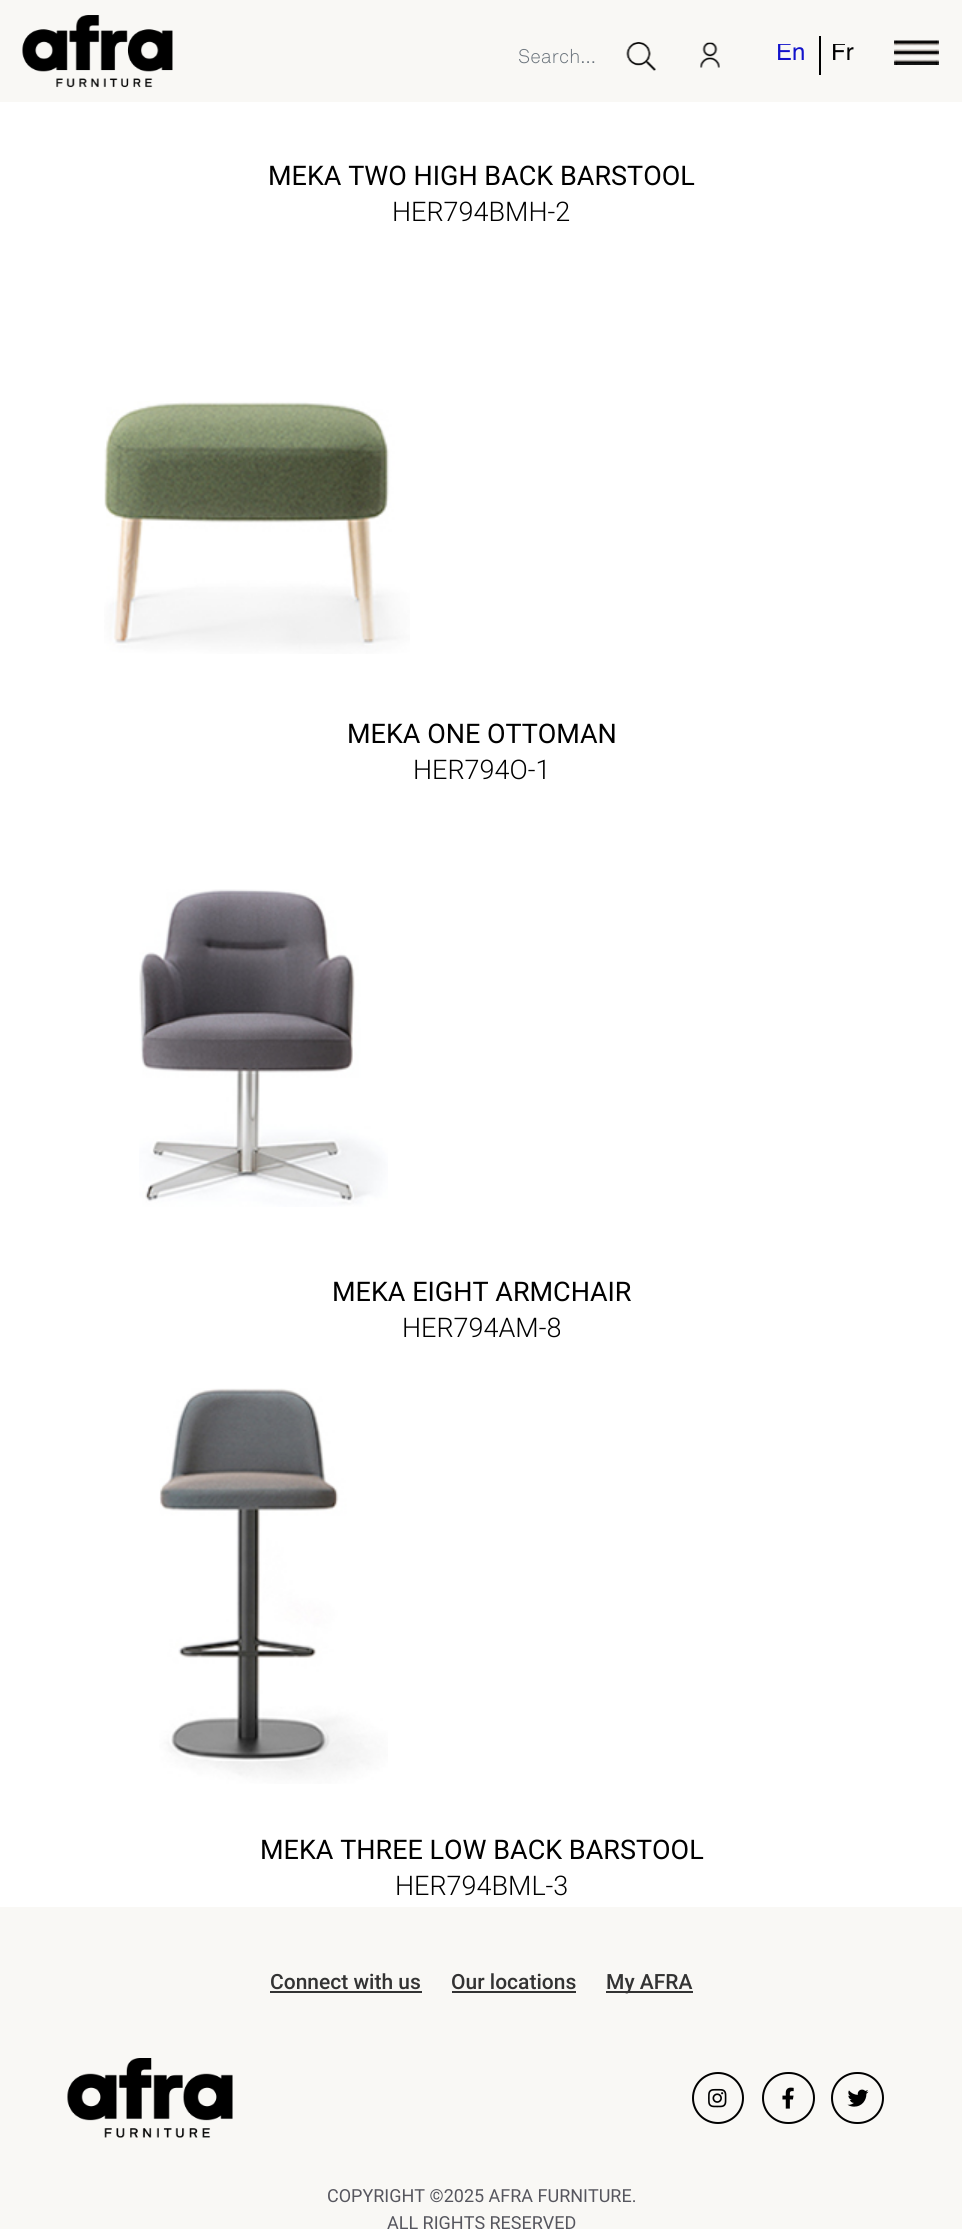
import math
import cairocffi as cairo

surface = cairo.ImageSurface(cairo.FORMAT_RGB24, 962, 2229)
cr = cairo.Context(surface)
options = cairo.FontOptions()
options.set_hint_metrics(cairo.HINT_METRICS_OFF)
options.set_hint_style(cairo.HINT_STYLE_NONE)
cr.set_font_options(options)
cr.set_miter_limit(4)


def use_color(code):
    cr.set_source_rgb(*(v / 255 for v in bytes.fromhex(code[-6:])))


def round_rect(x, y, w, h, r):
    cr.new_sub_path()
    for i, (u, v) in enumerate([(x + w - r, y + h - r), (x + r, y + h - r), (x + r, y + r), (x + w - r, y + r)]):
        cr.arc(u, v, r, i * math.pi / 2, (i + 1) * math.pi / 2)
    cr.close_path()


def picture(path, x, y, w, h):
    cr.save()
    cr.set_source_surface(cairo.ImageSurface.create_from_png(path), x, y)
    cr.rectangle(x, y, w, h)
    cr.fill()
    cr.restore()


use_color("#ffffff")
cr.paint()
use_color("#f9f8f5")
cr.rectangle(0, 0, 962, 102)
cr.fill()
picture("img1.png", 22, 15, 151, 73)
cr.select_font_face("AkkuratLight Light")
cr.set_font_size(19.5)
use_color("#6c757d")
cr.move_to(518, 63)
cr.show_text("Search...")
picture("img2.png", 626, 42, 30, 29)
picture("img3.png", 700, 42, 20, 26)
cr.save()
cr.rectangle(776, 44, 28, 24)
cr.clip()
cr.select_font_face("Helvetica")
cr.set_font_size(24)
use_color("#1313cb")
cr.move_to(776, 60)
cr.show_text("En")
cr.restore()
use_color("#000000")
cr.rectangle(819, 36, 2, 39)
cr.fill()
cr.save()
cr.rectangle(831, 44, 23, 24)
cr.clip()
cr.select_font_face("Helvetica")
cr.set_font_size(24)
cr.move_to(831, 60)
cr.show_text("Fr")
cr.restore()
picture("img4.png", 894, 40, 45, 25)
cr.select_font_face("Roboto")
cr.set_font_size(27)
cr.move_to(268, 185)
cr.show_text("MEKA TWO HIGH BACK BARSTOOL")
cr.select_font_face("Roboto Light")
cr.move_to(392, 221)
cr.show_text("HER794BMH-2")
picture("img5.png", 104, 401, 306, 253)
cr.select_font_face("Roboto")
cr.move_to(347, 743)
cr.show_text("MEKA ONE OTTOMAN")
cr.select_font_face("Roboto Light")
cr.move_to(413, 779)
cr.show_text("HER794O-1")
picture("img6.png", 139, 889, 249, 318)
cr.select_font_face("Roboto")
cr.move_to(332, 1301)
cr.show_text("MEKA EIGHT ARMCHAIR")
cr.select_font_face("Roboto Light")
cr.move_to(402, 1337)
cr.show_text("HER794AM-8")
picture("img7.png", 159, 1388, 229, 396)
cr.select_font_face("Roboto")
cr.move_to(260, 1859)
cr.show_text("MEKA THREE LOW BACK BARSTOOL")
cr.select_font_face("Roboto Light")
cr.move_to(395, 1895)
cr.show_text("HER794BML-3")
use_color("#f9f8f5")
cr.rectangle(0, 1907, 962, 322)
cr.fill()
cr.select_font_face("Roboto Medium")
cr.set_font_size(21)
use_color("#333333")
cr.move_to(270, 1989)
cr.show_text("Connect with us")
cr.rectangle(270, 1991, 152, 2)
cr.fill()
cr.move_to(451, 1989)
cr.show_text("Our locations")
cr.rectangle(452, 1991, 124, 2)
cr.fill()
cr.rectangle(606, 1991, 87, 2)
cr.fill()
cr.move_to(606, 1989)
cr.show_text("My AFRA")
picture("img8.png", 67, 2058, 166, 80)
cr.arc(718, 2098, 25, 0, 2 * math.pi)
use_color("#000000")
cr.stroke()
picture("img9.png", 708, 2088, 19, 20)
round_rect(763, 2073, 51, 50, 25)
cr.stroke()
picture("img10.png", 782, 2087, 12, 22)
round_rect(832, 2073, 51, 50, 25)
cr.stroke()
picture("img11.png", 847, 2089, 22, 18)
cr.select_font_face("Roboto")
cr.set_font_size(18)
use_color("#56565e")
cr.move_to(327, 2202)
cr.show_text("COPYRIGHT ©2025 AFRA FURNITURE.")
cr.move_to(387, 2229)
cr.show_text("ALL RIGHTS RESERVED")
surface.write_to_png("result.png")
